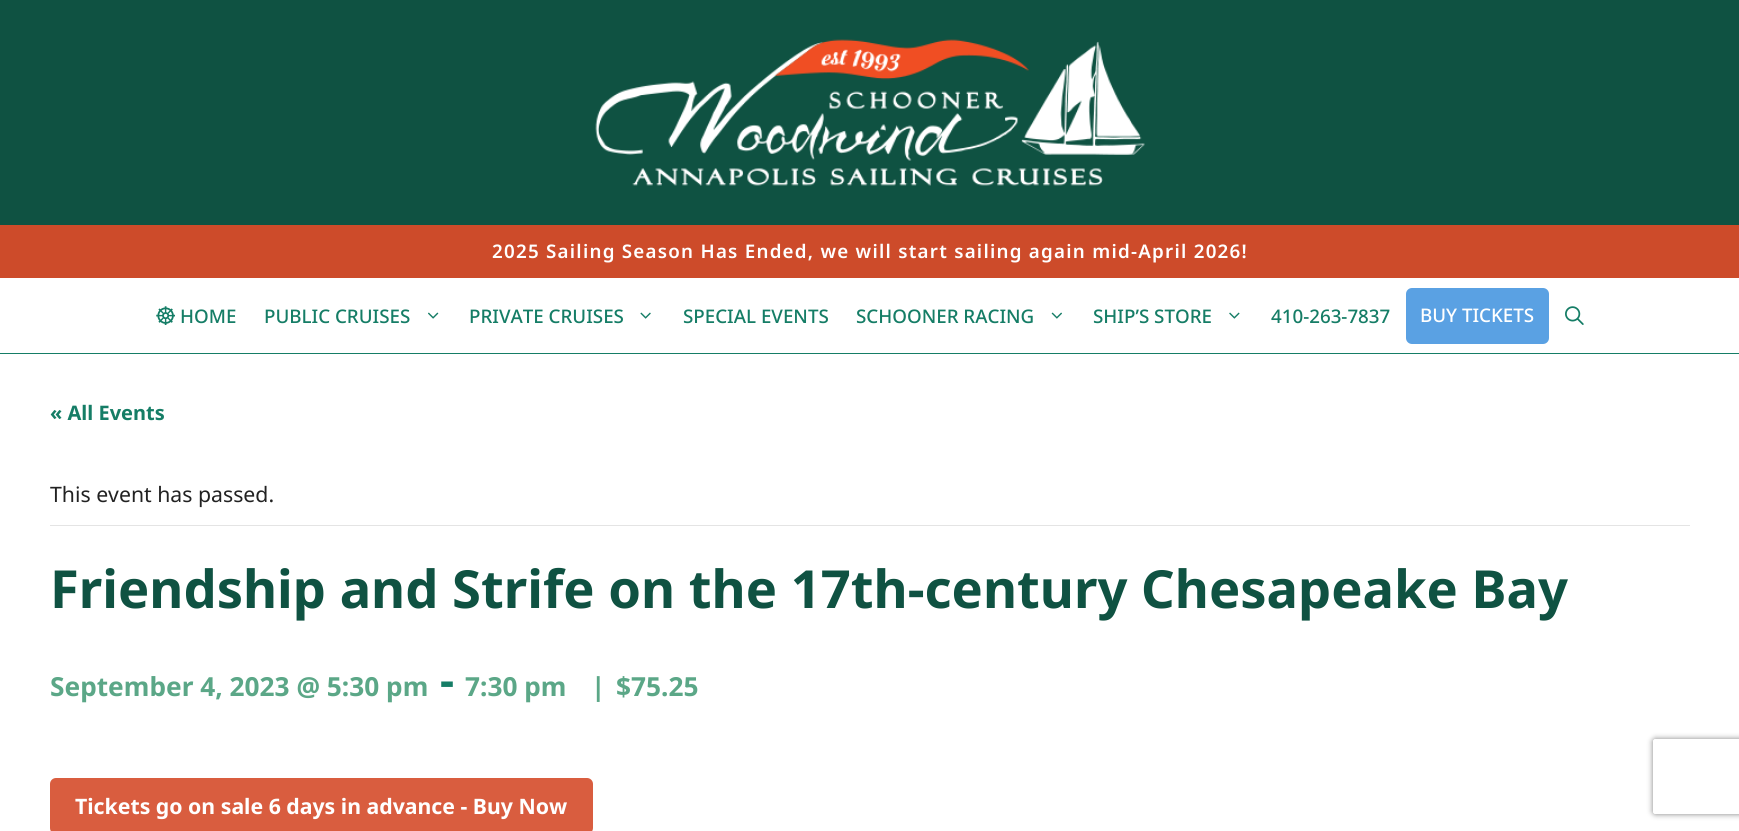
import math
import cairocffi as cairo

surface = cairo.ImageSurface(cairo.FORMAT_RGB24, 1739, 831)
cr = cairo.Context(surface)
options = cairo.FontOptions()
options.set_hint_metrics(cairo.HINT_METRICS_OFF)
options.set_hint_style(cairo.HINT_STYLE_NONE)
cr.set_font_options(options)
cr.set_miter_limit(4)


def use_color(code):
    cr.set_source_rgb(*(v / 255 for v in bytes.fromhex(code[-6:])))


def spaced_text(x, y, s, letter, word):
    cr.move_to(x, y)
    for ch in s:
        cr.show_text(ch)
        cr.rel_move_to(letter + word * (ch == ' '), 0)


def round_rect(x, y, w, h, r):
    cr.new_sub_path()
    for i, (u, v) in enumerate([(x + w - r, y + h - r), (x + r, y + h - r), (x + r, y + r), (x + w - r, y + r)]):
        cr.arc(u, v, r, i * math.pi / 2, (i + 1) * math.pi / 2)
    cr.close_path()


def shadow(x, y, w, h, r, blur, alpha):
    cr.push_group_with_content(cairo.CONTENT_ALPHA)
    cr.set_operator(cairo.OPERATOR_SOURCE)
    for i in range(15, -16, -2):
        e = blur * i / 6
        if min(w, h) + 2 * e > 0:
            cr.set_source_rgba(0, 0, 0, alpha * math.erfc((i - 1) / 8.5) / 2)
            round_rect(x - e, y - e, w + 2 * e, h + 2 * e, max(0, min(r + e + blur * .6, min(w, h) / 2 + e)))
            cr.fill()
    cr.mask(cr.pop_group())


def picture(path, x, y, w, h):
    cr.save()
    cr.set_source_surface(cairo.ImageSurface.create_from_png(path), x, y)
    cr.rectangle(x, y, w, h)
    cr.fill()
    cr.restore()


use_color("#ffffff")
cr.paint()
use_color("#0f5242")
cr.rectangle(0, 0, 1739, 225)
cr.fill()
picture("img1.png", 595, 39, 550, 147)
use_color("#cd4b2a")
cr.rectangle(0, 225, 1739, 53)
cr.fill()
cr.select_font_face("Noto Sans SemiBold")
cr.set_font_size(18.75)
use_color("#ffffff")
spaced_text(492, 258, "2025 Sailing Season Has Ended, we will start sailing again mid-April 2026!", 1.25, 0)
use_color("#157d66")
cr.rectangle(0, 353, 1739, 1)
cr.fill()
picture("img2.png", 156, 306, 19, 19)
cr.select_font_face("Noto Sans Medium")
cr.move_to(180, 323)
cr.show_text("HOME")
cr.move_to(264, 323)
cr.show_text("PUBLIC CRUISES")
picture("img3.png", 428, 312, 11, 7)
cr.move_to(469, 323)
cr.show_text("PRIVATE CRUISES")
picture("img4.png", 640, 312, 11, 7)
cr.move_to(683, 323)
cr.show_text("SPECIAL EVENTS")
cr.move_to(856, 323)
cr.show_text("SCHOONER RACING")
picture("img5.png", 1051, 312, 11, 7)
cr.move_to(1093, 323)
cr.show_text("SHIP’S STORE")
picture("img6.png", 1229, 312, 11, 7)
cr.move_to(1271, 323)
cr.show_text("410-263-7837")
use_color("#5aa1e3")
round_rect(1406, 288, 143, 56, 6)
cr.fill()
use_color("#ffffff")
cr.move_to(1420, 322)
cr.show_text("BUY TICKETS")
picture("img7.png", 1565, 306, 19, 19)
cr.select_font_face("Noto Sans", cairo.FONT_SLANT_NORMAL, cairo.FONT_WEIGHT_BOLD)
cr.set_font_size(20)
use_color("#157d66")
cr.move_to(50, 420)
cr.show_text("« All Events")
use_color("#e4e4e4")
cr.rectangle(50, 525, 1640, 1)
cr.fill()
cr.select_font_face("Noto Sans")
cr.set_font_size(21.25)
use_color("#222222")
cr.move_to(50, 502)
cr.show_text("This event has passed.")
cr.select_font_face("Noto Sans", cairo.FONT_SLANT_NORMAL, cairo.FONT_WEIGHT_BOLD)
cr.set_font_size(52.5)
use_color("#0f5242")
cr.move_to(50, 608)
cr.show_text("Friendship and Strife on the 17th-century Chesapeake Bay")
cr.set_font_size(26.25)
use_color("#5ba787")
cr.move_to(50, 696)
cr.show_text("September 4, 2023 @ 5:30 pm")
cr.set_font_size(44)
use_color("#157d66")
cr.move_to(440, 696)
cr.show_text("-")
cr.set_font_size(26.25)
use_color("#5ba787")
cr.move_to(465, 696)
cr.show_text("7:30 pm")
cr.move_to(591, 696)
cr.show_text("|")
cr.move_to(616, 696)
cr.show_text("$75.25")
use_color("#d95d3f")
round_rect(50, 778, 543, 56, 6)
cr.fill()
cr.set_font_size(21.25)
use_color("#ffffff")
cr.move_to(75, 814)
cr.show_text("Tickets go on sale 6 days in advance - Buy Now")
cr.save()
cr.set_fill_rule(cairo.FILL_RULE_EVEN_ODD)
cr.new_path()
cr.move_to(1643, 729)
cr.line_to(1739, 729)
cr.line_to(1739, 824)
cr.line_to(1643, 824)
cr.close_path()
cr.move_to(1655.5, 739)
cr.line_to(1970.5, 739)
cr.curve_to(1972, 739, 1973, 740, 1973, 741.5)
cr.line_to(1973, 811.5)
cr.curve_to(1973, 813, 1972, 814, 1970.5, 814)
cr.line_to(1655.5, 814)
cr.curve_to(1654, 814, 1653, 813, 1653, 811.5)
cr.line_to(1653, 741.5)
cr.curve_to(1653, 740, 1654, 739, 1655.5, 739)
cr.close_path()
cr.clip()
use_color("#808080")
shadow(1653, 739, 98, 75, 2.5, 3, 1)
cr.restore()
surface.write_to_png("result.png")
